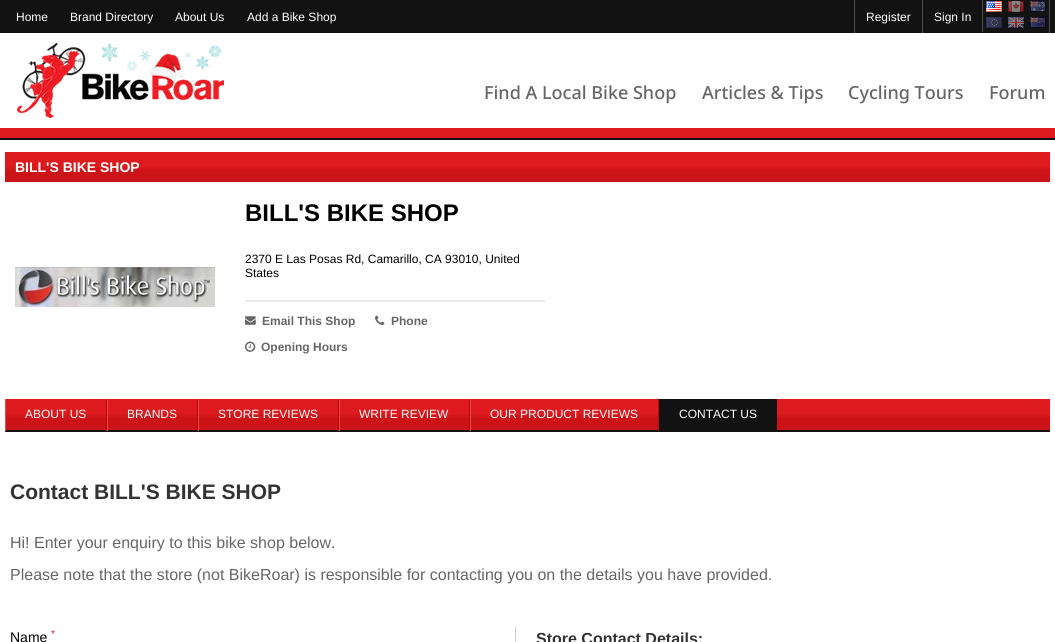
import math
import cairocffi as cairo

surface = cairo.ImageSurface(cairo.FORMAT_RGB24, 1055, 642)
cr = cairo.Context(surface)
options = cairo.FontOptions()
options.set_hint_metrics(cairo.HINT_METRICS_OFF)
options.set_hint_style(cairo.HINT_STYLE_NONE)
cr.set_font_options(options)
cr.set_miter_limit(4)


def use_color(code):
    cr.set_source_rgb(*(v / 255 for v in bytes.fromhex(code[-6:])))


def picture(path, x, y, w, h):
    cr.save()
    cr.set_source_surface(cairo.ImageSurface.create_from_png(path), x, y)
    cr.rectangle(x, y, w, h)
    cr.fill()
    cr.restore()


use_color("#ffffff")
cr.paint()
use_color("#121212")
cr.rectangle(0, 0, 1055, 33)
cr.fill()
cr.select_font_face("Liberation Sans")
cr.set_font_size(12)
use_color("#ffffff")
cr.move_to(16, 21)
cr.show_text("Home")
cr.move_to(70, 21)
cr.show_text("Brand Directory")
cr.move_to(175, 21)
cr.show_text("About Us")
cr.move_to(247, 21)
cr.show_text("Add a Bike Shop")
use_color("#505050")
cr.rectangle(1049, 0, 1, 33)
cr.fill()
cr.rectangle(854, 0, 1, 33)
cr.fill()
use_color("#ffffff")
cr.move_to(866, 21)
cr.show_text("Register")
use_color("#505050")
cr.rectangle(922, 0, 1, 33)
cr.fill()
use_color("#ffffff")
cr.move_to(934, 21)
cr.show_text("Sign In")
use_color("#505050")
cr.rectangle(982, 0, 1, 32)
cr.fill()
picture("img1.png", 986, 1, 16, 11)
picture("img2.png", 1008, 1, 16, 11)
picture("img3.png", 1030, 1, 16, 11)
picture("img4.png", 986, 17, 16, 11)
picture("img5.png", 1008, 17, 16, 11)
picture("img6.png", 1030, 17, 16, 11)
picture("img7.png", 17, 43, 207, 75)
cr.select_font_face("Noto Sans Medium")
cr.set_font_size(18)
use_color("#666666")
cr.move_to(484, 99)
cr.show_text("Find A Local Bike Shop")
cr.move_to(702, 99)
cr.show_text("Articles & Tips")
cr.move_to(848, 99)
cr.show_text("Cycling Tours")
cr.move_to(989, 99)
cr.show_text("Forum")
use_color("#dd1a1e")
cr.rectangle(0, 128, 1055, 10)
cr.fill()
use_color("#121212")
cr.rectangle(0, 138, 1055, 2)
cr.fill()
use_color("#cc1317")
cr.rectangle(5, 170, 1045, 12)
cr.fill()
picture("img8.png", 5, 152, 1045, 18)
cr.select_font_face("Liberation Sans", cairo.FONT_SLANT_NORMAL, cairo.FONT_WEIGHT_BOLD)
cr.set_font_size(14)
use_color("#ffffff")
cr.move_to(15, 172)
cr.show_text("BILL'S BIKE SHOP")
picture("img9.png", 15, 267, 200, 40)
cr.set_font_size(24)
use_color("#000000")
cr.move_to(245, 221)
cr.show_text("BILL'S BIKE SHOP")
cr.select_font_face("Liberation Sans")
cr.set_font_size(12)
cr.move_to(245, 263)
cr.show_text("2370 E Las Posas Rd, Camarillo, CA 93010, United")
cr.move_to(245, 277)
cr.show_text("States")
use_color("#eaeaea")
cr.rectangle(245, 300, 300, 2)
cr.fill()
picture("img10.png", 245, 316, 11, 9)
cr.select_font_face("Liberation Sans", cairo.FONT_SLANT_NORMAL, cairo.FONT_WEIGHT_BOLD)
use_color("#666666")
cr.move_to(262, 325)
cr.show_text("Email This Shop")
picture("img11.png", 375, 315, 10, 10)
cr.move_to(391, 325)
cr.show_text("Phone")
picture("img12.png", 245, 341, 11, 11)
cr.move_to(261, 351)
cr.show_text("Opening Hours")
use_color("#cc1317")
cr.rectangle(6, 417, 1044, 13)
cr.fill()
picture("img13.png", 6, 399, 1044, 18)
use_color("#121212")
cr.rectangle(5, 430, 1045, 2)
cr.fill()
use_color("#b60609")
cr.rectangle(106, 399, 1, 32)
cr.fill()
use_color("#ee484b")
cr.rectangle(5, 399, 1, 32)
cr.fill()
cr.select_font_face("Liberation Sans")
use_color("#ffffff")
cr.move_to(25, 418)
cr.show_text("ABOUT US")
use_color("#b60609")
cr.rectangle(197, 399, 1, 32)
cr.fill()
use_color("#ee484b")
cr.rectangle(107, 399, 1, 32)
cr.fill()
use_color("#ffffff")
cr.move_to(127, 418)
cr.show_text("BRANDS")
use_color("#b60609")
cr.rectangle(338, 399, 1, 32)
cr.fill()
use_color("#ee484b")
cr.rectangle(198, 399, 1, 32)
cr.fill()
use_color("#ffffff")
cr.move_to(218, 418)
cr.show_text("STORE REVIEWS")
use_color("#b60609")
cr.rectangle(469, 399, 1, 32)
cr.fill()
use_color("#ee484b")
cr.rectangle(339, 399, 1, 32)
cr.fill()
use_color("#ffffff")
cr.move_to(359, 418)
cr.show_text("WRITE REVIEW")
use_color("#b60609")
cr.rectangle(658, 399, 1, 32)
cr.fill()
use_color("#ee484b")
cr.rectangle(470, 399, 1, 32)
cr.fill()
use_color("#ffffff")
cr.move_to(490, 418)
cr.show_text("OUR PRODUCT REVIEWS")
use_color("#121212")
cr.rectangle(659, 399, 118, 31)
cr.fill()
use_color("#ffffff")
cr.move_to(679, 418)
cr.show_text("CONTACT US")
cr.select_font_face("Liberation Sans", cairo.FONT_SLANT_NORMAL, cairo.FONT_WEIGHT_BOLD)
cr.set_font_size(21)
use_color("#333333")
cr.move_to(10, 499)
cr.show_text("Contact BILL'S BIKE SHOP")
cr.select_font_face("Liberation Sans")
cr.set_font_size(16)
use_color("#666666")
cr.move_to(10, 548)
cr.show_text("Hi! Enter your enquiry to this bike shop below.")
cr.move_to(10, 580)
cr.show_text("Please note that the store (not BikeRoar) is responsible for contacting you on the details you have provided.")
use_color("#cccccc")
cr.rectangle(515, 627, 1, 15)
cr.fill()
cr.set_font_size(10)
use_color("#d61b34")
cr.move_to(51, 637)
cr.show_text("*")
cr.set_font_size(14)
use_color("#000000")
cr.move_to(10, 642)
cr.show_text("Name")
cr.select_font_face("Liberation Sans", cairo.FONT_SLANT_NORMAL, cairo.FONT_WEIGHT_BOLD)
cr.set_font_size(16)
use_color("#333333")
cr.move_to(536, 644)
cr.show_text("Store Contact Details:")
surface.write_to_png("result.png")
